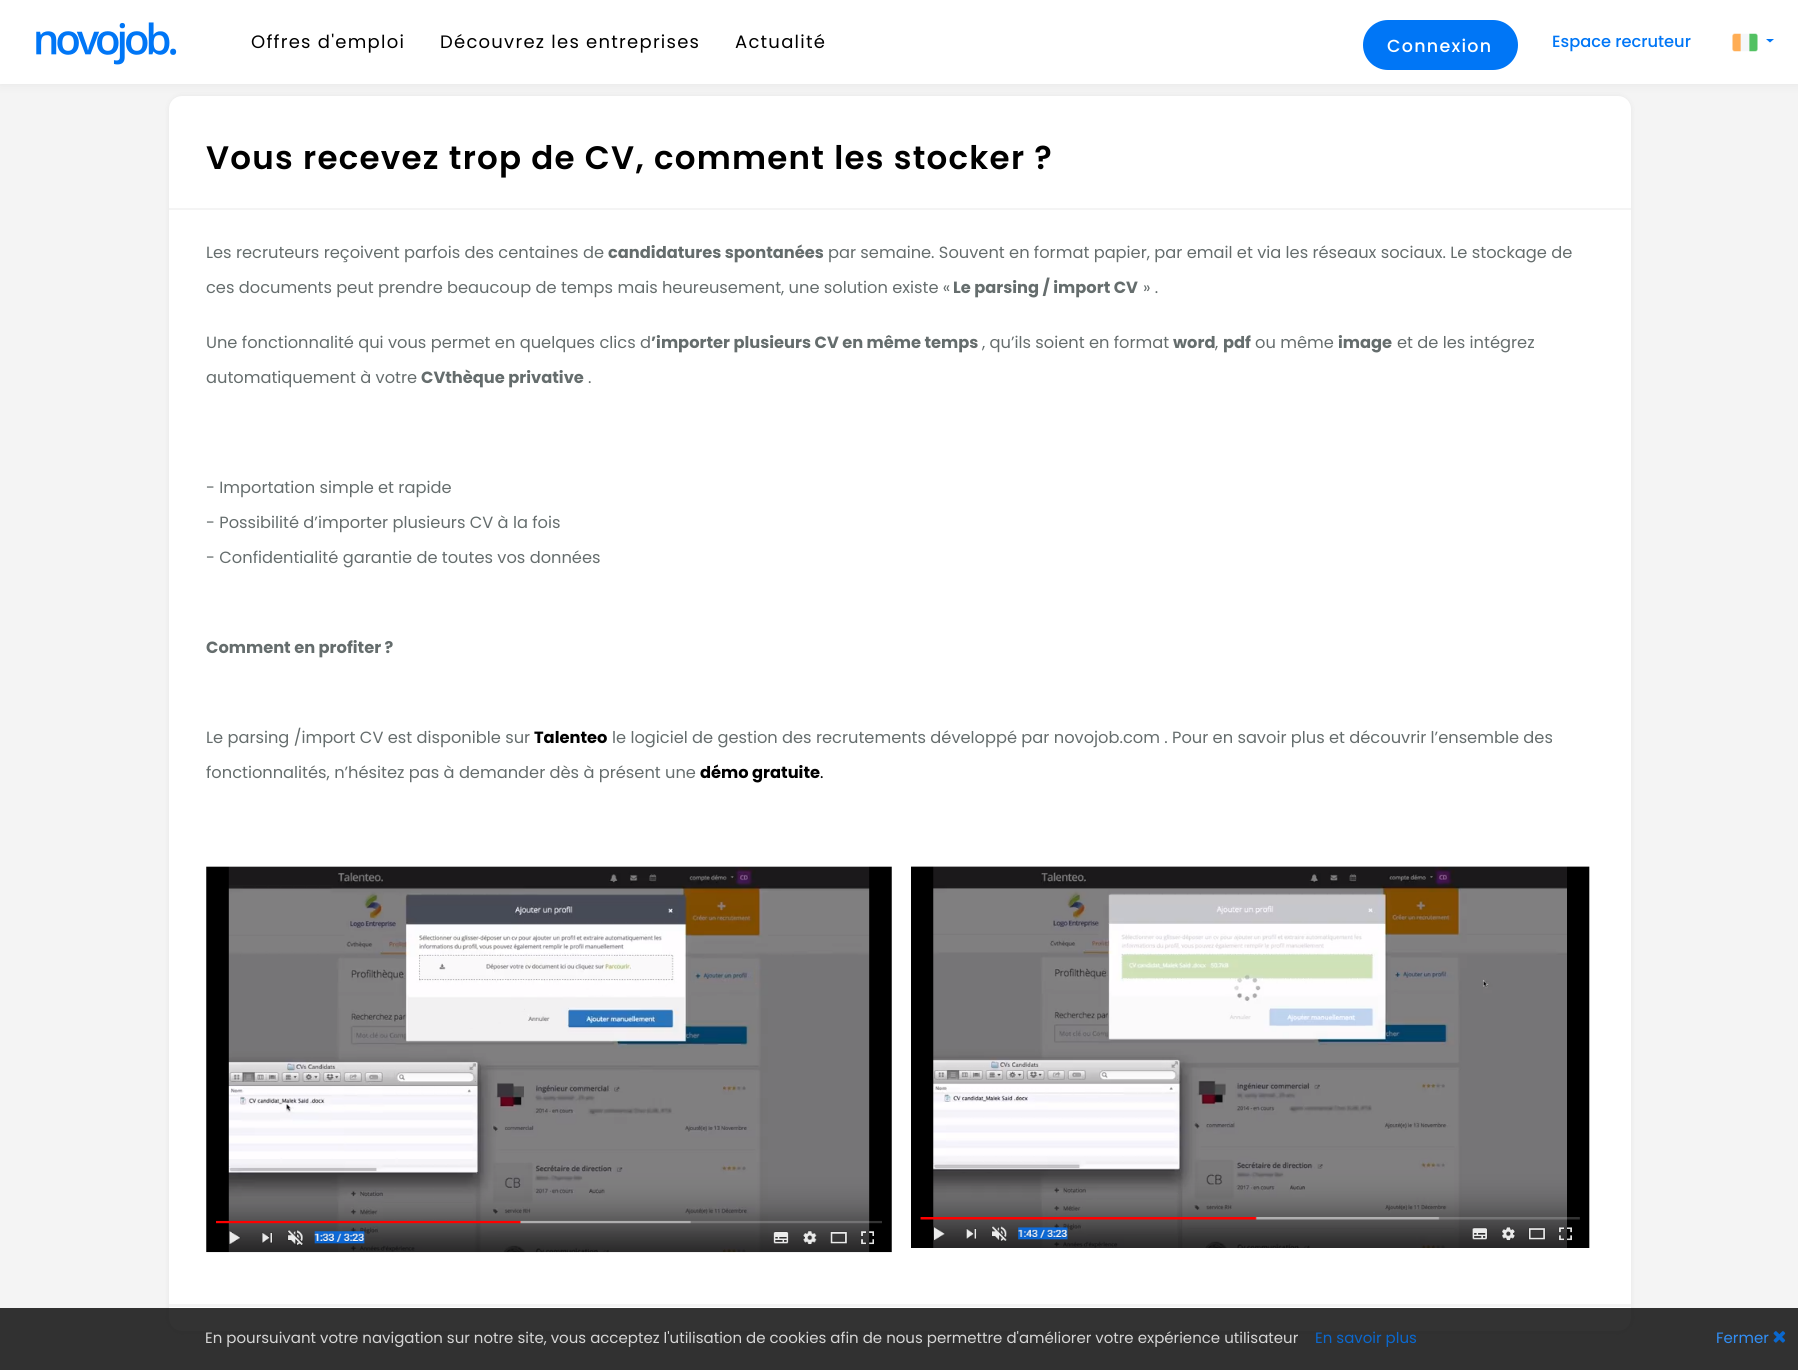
import math
import cairocffi as cairo

surface = cairo.ImageSurface(cairo.FORMAT_RGB24, 1798, 1370)
cr = cairo.Context(surface)
options = cairo.FontOptions()
options.set_hint_metrics(cairo.HINT_METRICS_OFF)
options.set_hint_style(cairo.HINT_STYLE_NONE)
cr.set_font_options(options)
cr.set_miter_limit(4)


def use_color(code):
    cr.set_source_rgb(*(v / 255 for v in bytes.fromhex(code[-6:])))


def spaced_text(x, y, s, letter, word):
    cr.move_to(x, y)
    for ch in s:
        cr.show_text(ch)
        cr.rel_move_to(letter + word * (ch == ' '), 0)


def round_rect(x, y, w, h, r):
    cr.new_sub_path()
    for i, (u, v) in enumerate([(x + w - r, y + h - r), (x + r, y + h - r), (x + r, y + r), (x + w - r, y + r)]):
        cr.arc(u, v, r, i * math.pi / 2, (i + 1) * math.pi / 2)
    cr.close_path()


def shadow(x, y, w, h, r, blur, alpha):
    cr.push_group_with_content(cairo.CONTENT_ALPHA)
    cr.set_operator(cairo.OPERATOR_SOURCE)
    for i in range(15, -16, -2):
        e = blur * i / 6
        if min(w, h) + 2 * e > 0:
            cr.set_source_rgba(0, 0, 0, alpha * math.erfc((i - 1) / 8.5) / 2)
            round_rect(x - e, y - e, w + 2 * e, h + 2 * e, max(0, min(r + e + blur * .6, min(w, h) / 2 + e)))
            cr.fill()
    cr.mask(cr.pop_group())


def picture(path, x, y, w, h):
    cr.save()
    cr.set_source_surface(cairo.ImageSurface.create_from_png(path), x, y)
    cr.rectangle(x, y, w, h)
    cr.fill()
    cr.restore()


use_color("#f4f4f4")
cr.paint()
use_color("#000000")
shadow(169, 96, 1462, 1235, 13, 3, 0.06)
use_color("#ffffff")
round_rect(169, 96, 1462, 1235, 13)
cr.fill()
use_color("#000000")
shadow(0, 0, 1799, 84, 0, 6, 0.06)
use_color("#ffffff")
cr.rectangle(0, 0, 1798, 84)
cr.fill()
picture("img1.png", 36, 22, 141, 43)
cr.select_font_face("Poppins")
cr.set_font_size(18)
use_color("#000000")
spaced_text(251, 48, "Offres d'emploi", 1.25, 0)
spaced_text(440, 48, "Découvrez les entreprises", 1.25, 0)
spaced_text(735, 48, "Actualité", 1.25, 0)
use_color("#0076f6")
round_rect(1363, 20, 155, 50, 25)
cr.fill()
cr.select_font_face("Poppins Medium")
cr.set_font_size(17.5)
use_color("#ffffff")
spaced_text(1387, 52, "Connexion", 1.25, 0)
cr.set_font_size(16.25)
use_color("#0076f6")
cr.move_to(1552, 47)
cr.show_text("Espace recruteur")
picture("img2.png", 1732, 33, 26, 19)
cr.new_path()
cr.move_to(1766, 39)
cr.line_to(1774, 39)
cr.line_to(1770, 42.5)
cr.close_path()
cr.fill()
use_color("#f4f4f4")
cr.rectangle(169, 208, 1462, 2)
cr.fill()
cr.select_font_face("Poppins SemiBold")
cr.set_font_size(32.5)
use_color("#000000")
spaced_text(206, 169, "Vous recevez trop de CV, comment les stocker ?", 1.25, 0)
use_color("#f4f4f4")
cr.rectangle(169, 1304, 1462, 3)
cr.fill()
cr.select_font_face("Poppins")
cr.set_font_size(16.25)
use_color("#656d6d")
cr.move_to(206, 258)
cr.show_text("Les recruteurs reçoivent parfois des centaines de")
cr.select_font_face("Poppins", cairo.FONT_SLANT_NORMAL, cairo.FONT_WEIGHT_BOLD)
cr.move_to(608, 258)
cr.show_text("candidatures spontanées")
cr.select_font_face("Poppins")
cr.move_to(828, 258)
cr.show_text("par semaine. Souvent en format papier, par email et via les réseaux sociaux. Le stockage de")
cr.move_to(206, 293)
cr.show_text("ces documents peut prendre beaucoup de temps mais heureusement, une solution existe «")
cr.select_font_face("Poppins", cairo.FONT_SLANT_NORMAL, cairo.FONT_WEIGHT_BOLD)
cr.move_to(953, 293)
cr.show_text("Le parsing / import CV")
cr.select_font_face("Poppins")
cr.move_to(1143, 293)
cr.show_text("» .")
cr.move_to(206, 348)
cr.show_text("Une fonctionnalité qui vous permet en quelques clics d")
cr.select_font_face("Poppins", cairo.FONT_SLANT_NORMAL, cairo.FONT_WEIGHT_BOLD)
cr.move_to(651, 348)
cr.show_text("’importer plusieurs CV en même temps")
cr.select_font_face("Poppins")
cr.move_to(982, 348)
cr.show_text(", qu’ils soient en format")
cr.select_font_face("Poppins", cairo.FONT_SLANT_NORMAL, cairo.FONT_WEIGHT_BOLD)
cr.move_to(1173, 348)
cr.show_text("word")
cr.select_font_face("Poppins")
cr.move_to(1215, 348)
cr.show_text(",")
cr.select_font_face("Poppins", cairo.FONT_SLANT_NORMAL, cairo.FONT_WEIGHT_BOLD)
cr.move_to(1223, 348)
cr.show_text("pdf")
cr.select_font_face("Poppins")
cr.move_to(1255, 348)
cr.show_text("ou même")
cr.select_font_face("Poppins", cairo.FONT_SLANT_NORMAL, cairo.FONT_WEIGHT_BOLD)
cr.move_to(1338, 348)
cr.show_text("image")
cr.select_font_face("Poppins")
cr.move_to(1397, 348)
cr.show_text("et de les intégrez")
cr.move_to(206, 383)
cr.show_text("automatiquement à votre")
cr.select_font_face("Poppins", cairo.FONT_SLANT_NORMAL, cairo.FONT_WEIGHT_BOLD)
cr.move_to(421, 383)
cr.show_text("CVthèque privative")
cr.select_font_face("Poppins")
cr.move_to(588, 383)
cr.show_text(".")
cr.move_to(206, 493)
cr.show_text("- Importation simple et rapide")
cr.move_to(206, 528)
cr.show_text("- Possibilité d’importer plusieurs CV à la fois")
cr.move_to(206, 563)
cr.show_text("- Confidentialité garantie de toutes vos données")
cr.select_font_face("Poppins", cairo.FONT_SLANT_NORMAL, cairo.FONT_WEIGHT_BOLD)
cr.move_to(206, 653)
cr.show_text("Comment en profiter ?")
cr.select_font_face("Poppins")
cr.move_to(206, 743)
cr.show_text("Le parsing /import CV est disponible sur")
cr.select_font_face("Poppins", cairo.FONT_SLANT_NORMAL, cairo.FONT_WEIGHT_BOLD)
use_color("#000000")
cr.move_to(534, 743)
cr.show_text("Talenteo")
cr.select_font_face("Poppins")
use_color("#656d6d")
cr.move_to(612, 743)
cr.show_text("le logiciel de gestion des recrutements développé par novojob.com . Pour en savoir plus et découvrir l’ensemble des")
cr.move_to(206, 778)
cr.show_text("fonctionnalités, n’hésitez pas à demander dès à présent une")
cr.select_font_face("Poppins", cairo.FONT_SLANT_NORMAL, cairo.FONT_WEIGHT_BOLD)
use_color("#000000")
cr.move_to(700, 778)
cr.show_text("démo gratuite")
cr.select_font_face("Poppins")
cr.move_to(820, 778)
cr.show_text(".")
picture("img3.png", 206, 866, 686, 387)
picture("img4.png", 911, 866, 679, 382)
cr.set_source_rgba(0, 0, 0, 0.8)
cr.rectangle(0, 1308, 1798, 62)
cr.fill()
cr.set_font_size(15)
use_color("#d6d6d6")
cr.move_to(205, 1343)
cr.show_text("En poursuivant votre navigation sur notre site, vous acceptez l'utilisation de cookies afin de nous permettre d'améliorer votre expérience utilisateur")
use_color("#0a68cf")
cr.move_to(1315, 1343)
cr.show_text("En savoir plus")
use_color("#318ff6")
cr.move_to(1716, 1343)
cr.show_text("Fermer")
picture("img5.png", 1773, 1331, 13, 12)
surface.write_to_png("result.png")
